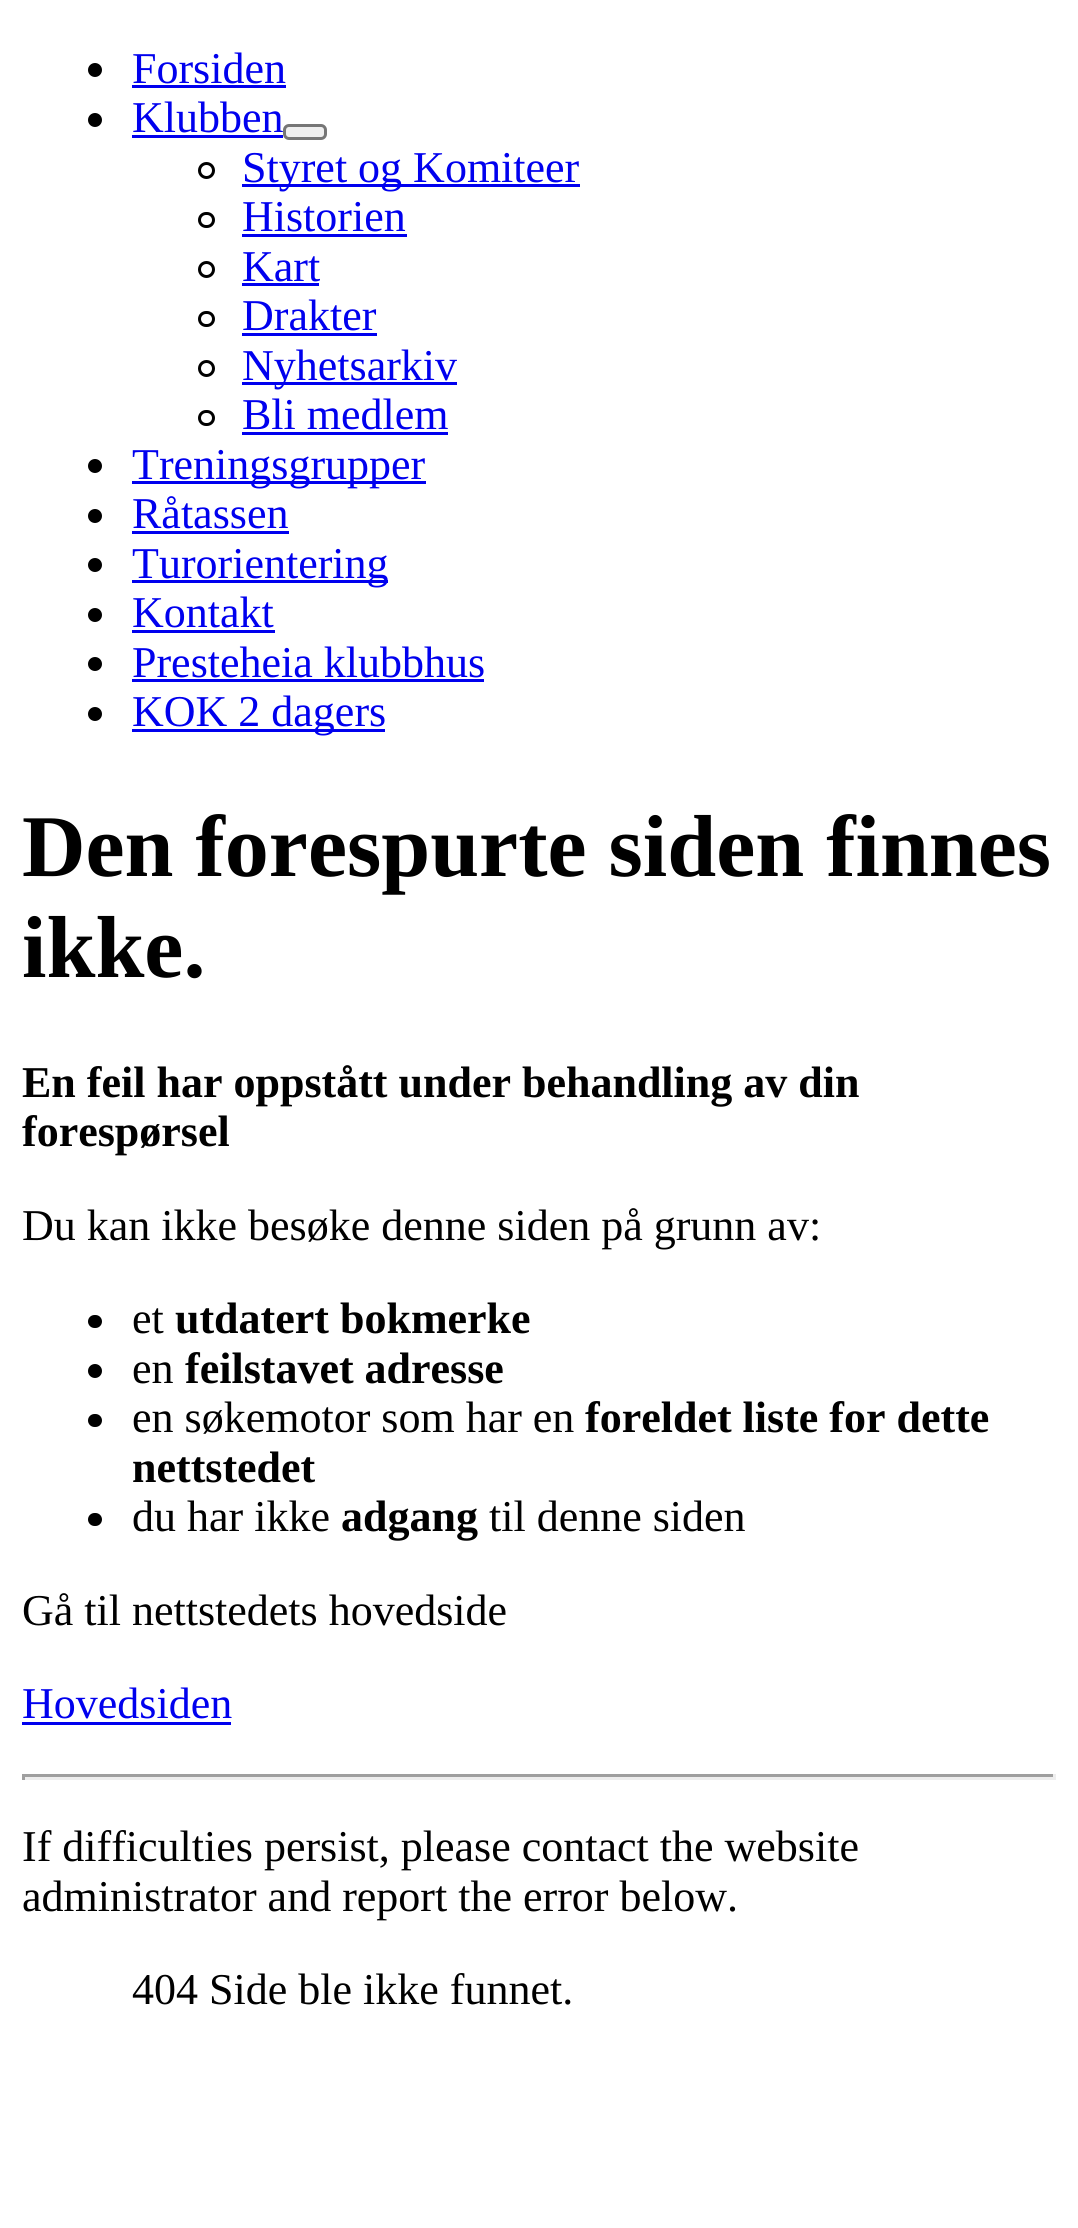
import math
import cairocffi as cairo

surface = cairo.ImageSurface(cairo.FORMAT_RGB24, 1078, 2228)
cr = cairo.Context(surface)
options = cairo.FontOptions()
options.set_hint_metrics(cairo.HINT_METRICS_OFF)
options.set_hint_style(cairo.HINT_STYLE_NONE)
cr.set_font_options(options)
cr.set_miter_limit(4)


def use_color(code):
    cr.set_source_rgb(*(v / 255 for v in bytes.fromhex(code[-6:])))


def round_rect(x, y, w, h, r):
    cr.new_sub_path()
    for i, (u, v) in enumerate([(x + w - r, y + h - r), (x + r, y + h - r), (x + r, y + r), (x + w - r, y + r)]):
        cr.arc(u, v, r, i * math.pi / 2, (i + 1) * math.pi / 2)
    cr.close_path()


use_color("#ffffff")
cr.paint()
use_color("#000000")
cr.arc(95, 70, 7, 0, 2 * math.pi)
cr.fill()
cr.select_font_face("Liberation Serif")
cr.set_font_size(44)
use_color("#0000ee")
cr.move_to(132, 83)
cr.show_text("Forsiden")
cr.rectangle(132, 85, 154, 3)
cr.fill()
use_color("#000000")
cr.arc(95, 120, 7, 0, 2 * math.pi)
cr.fill()
use_color("#0000ee")
cr.move_to(132, 132)
cr.show_text("Klubben")
cr.rectangle(132, 135, 151, 3)
cr.fill()
use_color("#efefef")
round_rect(284.5, 125.5, 41, 13, 4.5)
cr.fill_preserve()
use_color("#767676")
cr.set_line_width(3)
cr.stroke()
cr.arc(206.5, 170.5, 7, 0, 2 * math.pi)
use_color("#000000")
cr.stroke()
use_color("#0000ee")
cr.rectangle(242, 184, 338, 3)
cr.fill()
cr.move_to(242, 182)
cr.show_text("Styret og Komiteer")
round_rect(199.5, 213.5, 14, 13, 6.5)
use_color("#000000")
cr.stroke()
use_color("#0000ee")
cr.move_to(242, 231)
cr.show_text("Historien")
cr.rectangle(242, 234, 165, 3)
cr.fill()
cr.arc(206.5, 269.5, 7, 0, 2 * math.pi)
use_color("#000000")
cr.stroke()
use_color("#0000ee")
cr.move_to(242, 281)
cr.show_text("Kart")
cr.rectangle(242, 283, 77, 3)
cr.fill()
round_rect(199.5, 312.5, 14, 13, 6.5)
use_color("#000000")
cr.stroke()
use_color("#0000ee")
cr.move_to(242, 330)
cr.show_text("Drakter")
cr.rectangle(242, 333, 135, 3)
cr.fill()
cr.arc(206.5, 368.5, 7, 0, 2 * math.pi)
use_color("#000000")
cr.stroke()
use_color("#0000ee")
cr.rectangle(242, 382, 215, 3)
cr.fill()
cr.move_to(242, 380)
cr.show_text("Nyhetsarkiv")
round_rect(199.5, 411.5, 14, 13, 6.5)
use_color("#000000")
cr.stroke()
use_color("#0000ee")
cr.move_to(242, 429)
cr.show_text("Bli medlem")
cr.rectangle(242, 432, 206, 3)
cr.fill()
use_color("#000000")
cr.arc(95, 466, 7, 0, 2 * math.pi)
cr.fill()
use_color("#0000ee")
cr.rectangle(132, 481, 294, 3)
cr.fill()
cr.move_to(132, 479)
cr.show_text("Treningsgrupper")
use_color("#000000")
cr.new_path()
cr.arc(95, 516, 7, 0, 2 * math.pi)
cr.fill()
use_color("#0000ee")
cr.move_to(132, 528)
cr.show_text("Råtassen")
cr.rectangle(132, 531, 157, 3)
cr.fill()
use_color("#000000")
cr.arc(95, 565, 7, 0, 2 * math.pi)
cr.fill()
use_color("#0000ee")
cr.rectangle(132, 580, 256, 3)
cr.fill()
cr.move_to(132, 578)
cr.show_text("Turorientering")
use_color("#000000")
cr.new_path()
cr.arc(95, 615, 7, 0, 2 * math.pi)
cr.fill()
use_color("#0000ee")
cr.move_to(132, 627)
cr.show_text("Kontakt")
cr.rectangle(132, 630, 143, 3)
cr.fill()
use_color("#000000")
cr.arc(95, 664, 7, 0, 2 * math.pi)
cr.fill()
use_color("#0000ee")
cr.move_to(132, 677)
cr.show_text("Presteheia klubbhus")
cr.rectangle(132, 679, 352, 3)
cr.fill()
use_color("#000000")
cr.arc(95, 714, 7, 0, 2 * math.pi)
cr.fill()
use_color("#0000ee")
cr.rectangle(132, 729, 253, 3)
cr.fill()
cr.move_to(132, 726)
cr.show_text("KOK 2 dagers")
cr.select_font_face("Liberation Serif", cairo.FONT_SLANT_NORMAL, cairo.FONT_WEIGHT_BOLD)
cr.set_font_size(88)
use_color("#000000")
cr.move_to(22, 876)
cr.show_text("Den forespurte siden finnes")
cr.move_to(22, 977)
cr.show_text("ikke.")
cr.set_font_size(44)
cr.move_to(22, 1097)
cr.show_text("En feil har oppstått under behandling av din")
cr.move_to(22, 1146)
cr.show_text("forespørsel")
cr.select_font_face("Liberation Serif")
cr.move_to(22, 1240)
cr.show_text("Du kan ikke besøke denne siden på grunn av:")
round_rect(88, 1315, 14, 13, 6.5)
cr.fill()
cr.move_to(132, 1333)
cr.show_text("et")
cr.select_font_face("Liberation Serif", cairo.FONT_SLANT_NORMAL, cairo.FONT_WEIGHT_BOLD)
cr.move_to(175, 1333)
cr.show_text("utdatert bokmerke")
cr.new_path()
cr.arc(95, 1371, 7, 0, 2 * math.pi)
cr.fill()
cr.select_font_face("Liberation Serif")
cr.move_to(132, 1383)
cr.show_text("en")
cr.select_font_face("Liberation Serif", cairo.FONT_SLANT_NORMAL, cairo.FONT_WEIGHT_BOLD)
cr.move_to(185, 1383)
cr.show_text("feilstavet adresse")
round_rect(88, 1414, 14, 13, 6.5)
cr.fill()
cr.select_font_face("Liberation Serif")
cr.move_to(132, 1432)
cr.show_text("en søkemotor som har en")
cr.select_font_face("Liberation Serif", cairo.FONT_SLANT_NORMAL, cairo.FONT_WEIGHT_BOLD)
cr.move_to(585, 1432)
cr.show_text("foreldet liste for dette")
cr.move_to(132, 1482)
cr.show_text("nettstedet")
round_rect(88, 1513, 14, 13, 6.5)
cr.fill()
cr.select_font_face("Liberation Serif")
cr.move_to(132, 1531)
cr.show_text("du har ikke")
cr.select_font_face("Liberation Serif", cairo.FONT_SLANT_NORMAL, cairo.FONT_WEIGHT_BOLD)
cr.move_to(341, 1531)
cr.show_text("adgang")
cr.select_font_face("Liberation Serif")
cr.move_to(489, 1531)
cr.show_text("til denne siden")
cr.move_to(22, 1625)
cr.show_text("Gå til nettstedets hovedside")
use_color("#0000ee")
cr.move_to(22, 1718)
cr.show_text("Hovedsiden")
cr.rectangle(22, 1722, 209, 3)
cr.fill()
use_color("#9f9f9f")
cr.rectangle(22, 1774, 1034, 3)
cr.fill()
use_color("#eeeeee")
cr.rectangle(1053, 1774, 3, 6)
cr.fill()
cr.rectangle(22, 1777, 1034, 3)
cr.fill()
use_color("#9f9f9f")
cr.rectangle(22, 1774, 3, 6)
cr.fill()
use_color("#000000")
cr.move_to(22, 1861)
cr.show_text("If difficulties persist, please contact the website")
cr.move_to(22, 1911)
cr.show_text("administrator and report the error below.")
cr.move_to(132, 2004)
cr.show_text("404 Side ble ikke funnet.")
surface.write_to_png("result.png")
